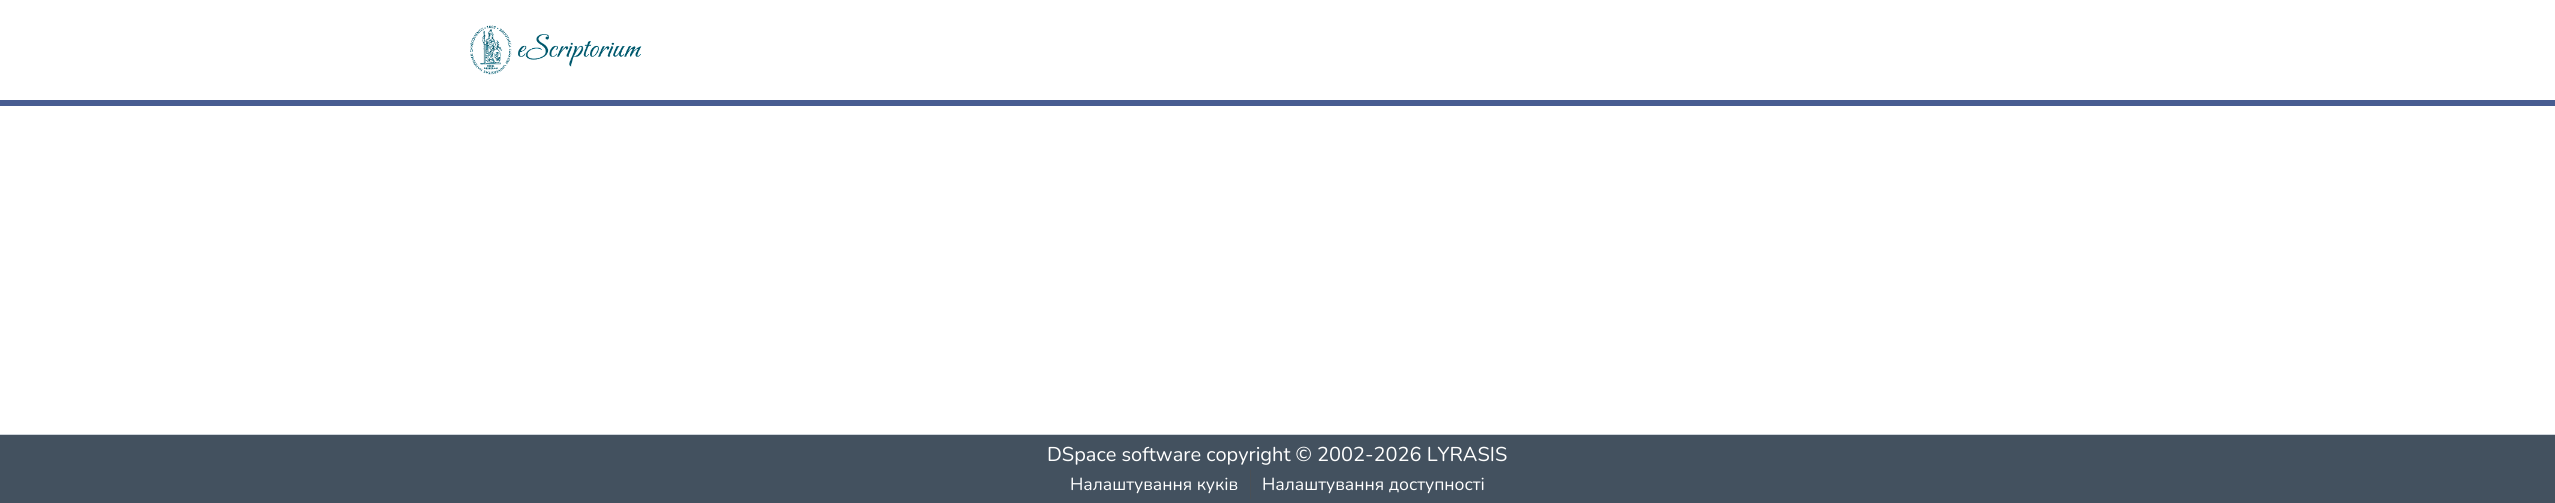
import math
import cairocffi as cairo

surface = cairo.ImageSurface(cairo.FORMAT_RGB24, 2555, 503)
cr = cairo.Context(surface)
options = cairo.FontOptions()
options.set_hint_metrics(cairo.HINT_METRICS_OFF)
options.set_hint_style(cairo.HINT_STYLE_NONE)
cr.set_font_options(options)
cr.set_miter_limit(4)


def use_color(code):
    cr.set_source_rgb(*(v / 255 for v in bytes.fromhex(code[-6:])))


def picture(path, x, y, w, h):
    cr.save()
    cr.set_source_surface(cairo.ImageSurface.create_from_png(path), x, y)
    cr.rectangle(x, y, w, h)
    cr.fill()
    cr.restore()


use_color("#ffffff")
cr.paint()
use_color("#485d91")
cr.rectangle(0, 100, 2555, 6)
cr.fill()
picture("img1.png", 470, 25, 172, 50)
use_color("#43515f")
cr.rectangle(0, 435, 2555, 68)
cr.fill()
use_color("#ced4da")
cr.rectangle(0, 434, 2555, 1)
cr.fill()
cr.select_font_face("Nunito")
cr.set_font_size(20)
use_color("#ffffff")
cr.move_to(1047, 461)
cr.show_text("DSpace software copyright © 2002-2026 LYRASIS")
cr.set_font_size(17.5)
cr.move_to(1070, 490)
cr.show_text("Налаштування куків")
use_color("#495057")
cr.rectangle(1250, 470, 1, 29)
cr.fill()
use_color("#ffffff")
cr.move_to(1262, 490)
cr.show_text("Налаштування доступності")
surface.write_to_png("result.png")
